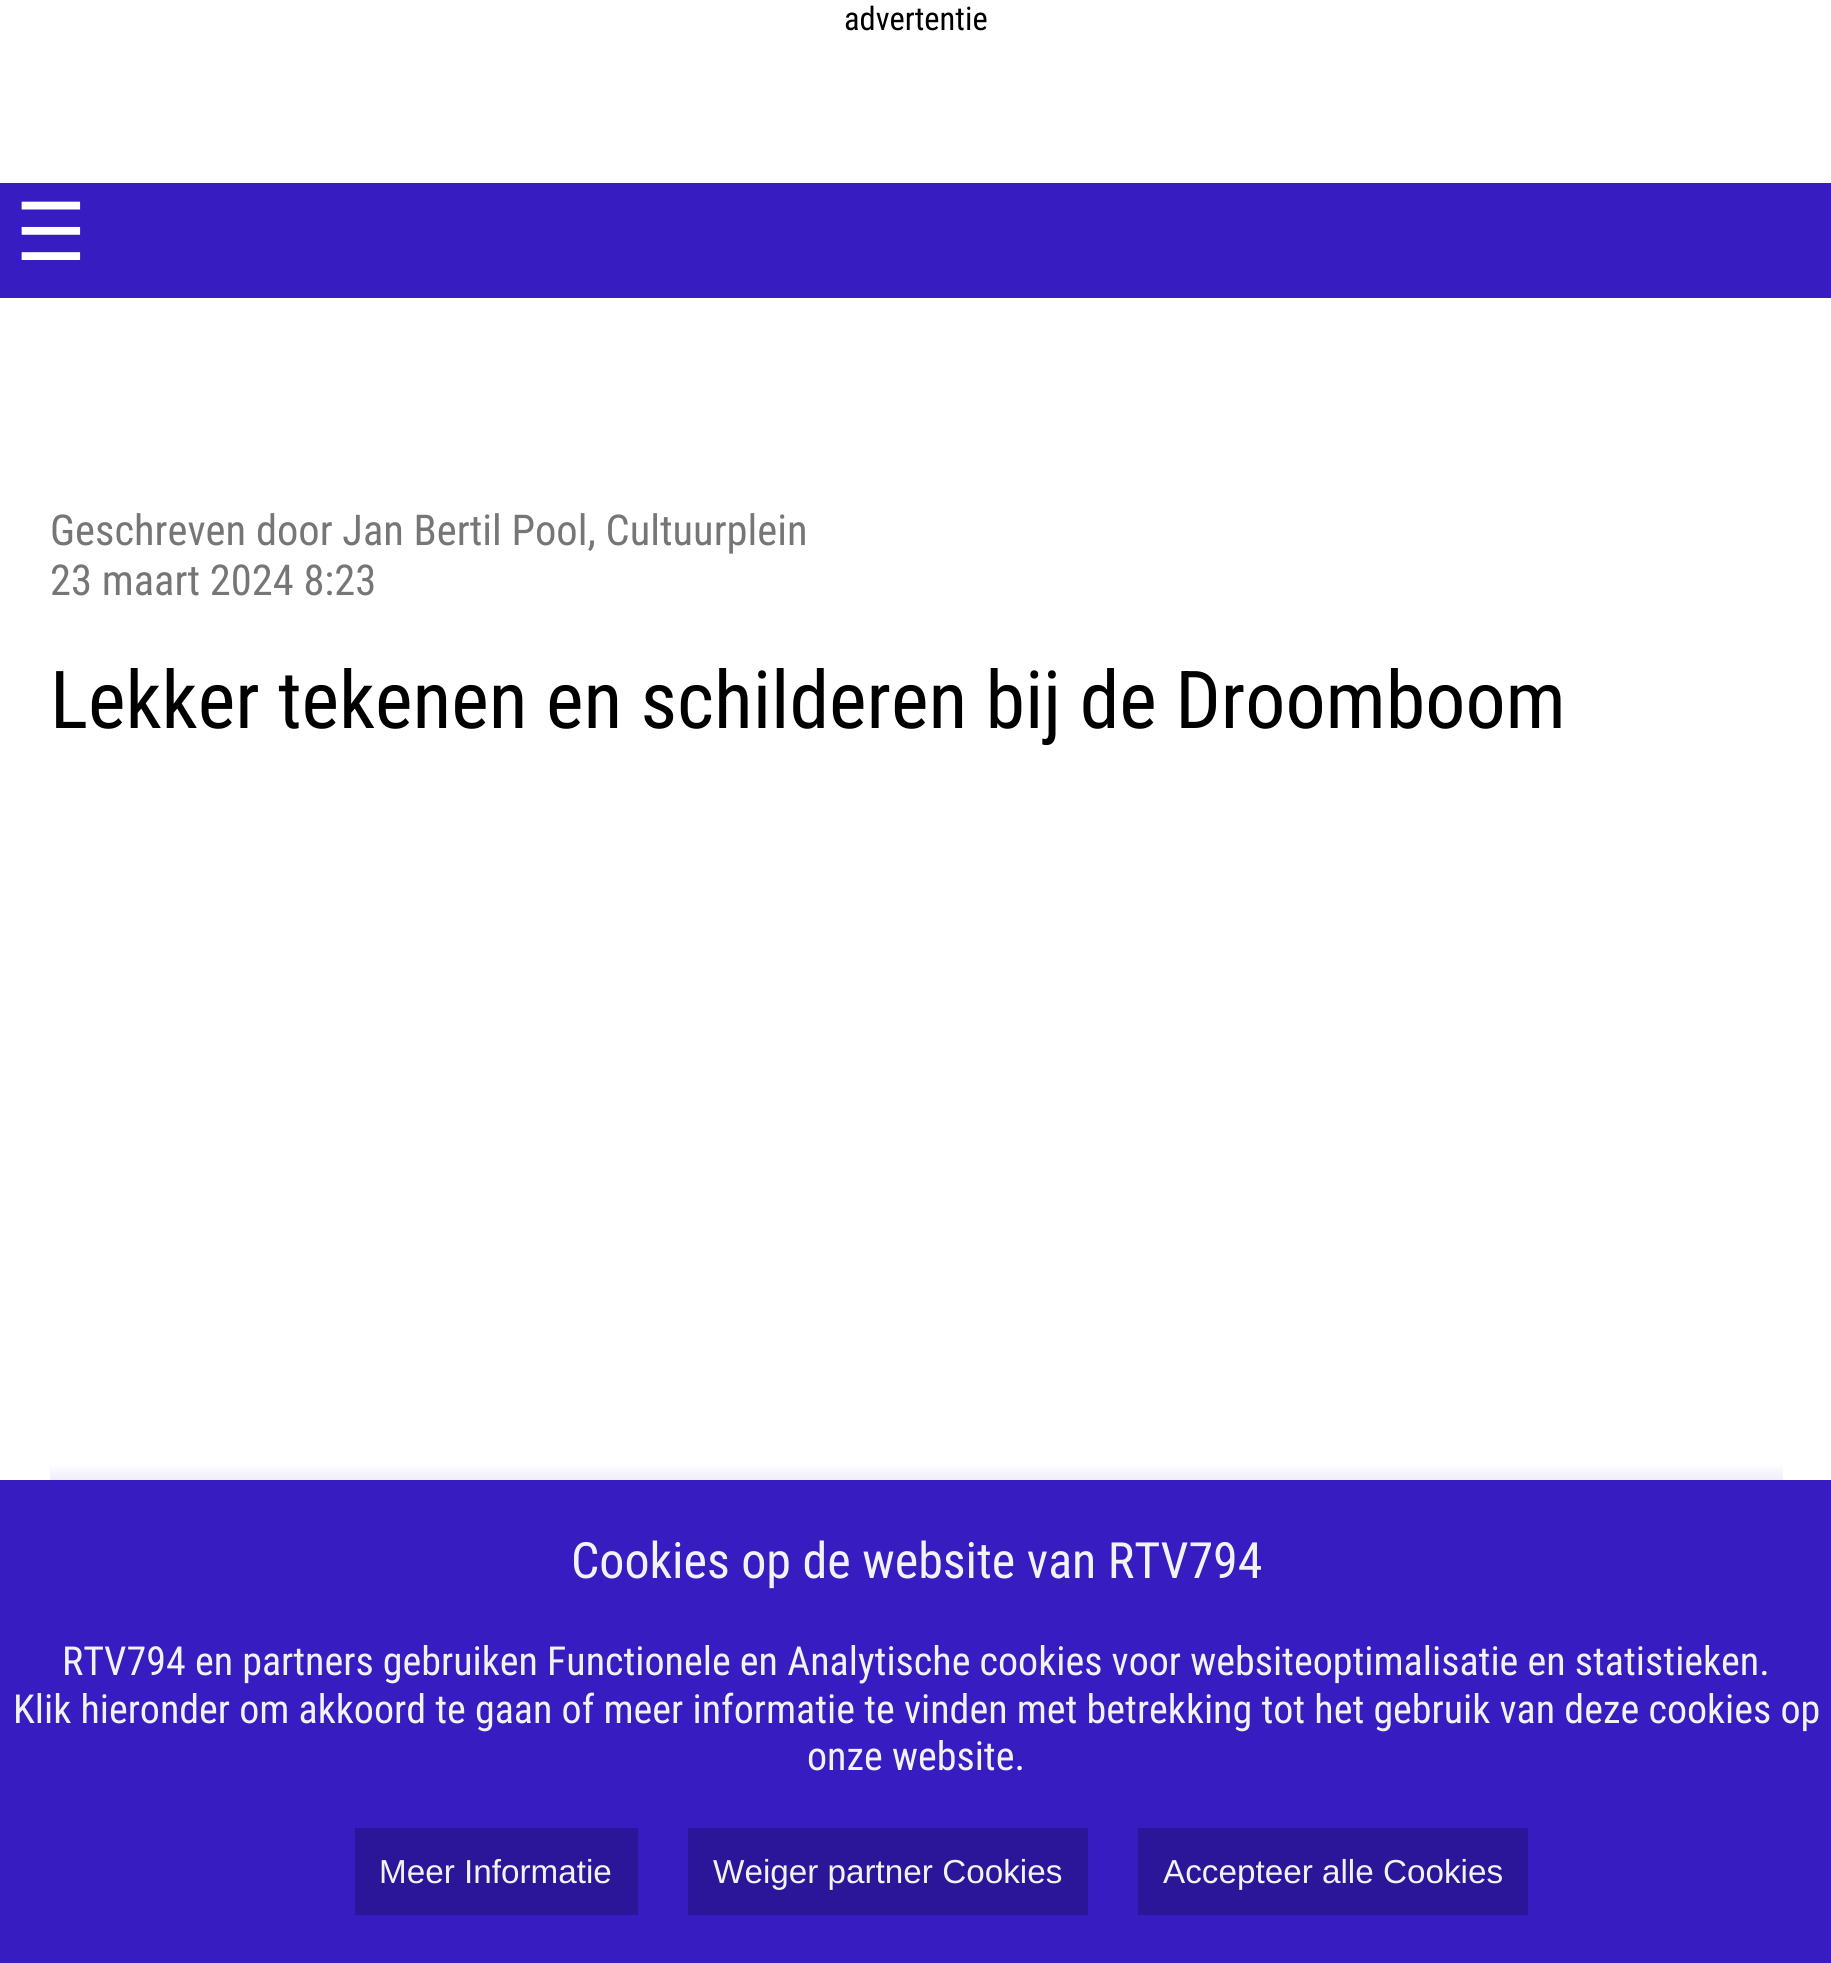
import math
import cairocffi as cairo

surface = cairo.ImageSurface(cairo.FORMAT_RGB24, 1831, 1963)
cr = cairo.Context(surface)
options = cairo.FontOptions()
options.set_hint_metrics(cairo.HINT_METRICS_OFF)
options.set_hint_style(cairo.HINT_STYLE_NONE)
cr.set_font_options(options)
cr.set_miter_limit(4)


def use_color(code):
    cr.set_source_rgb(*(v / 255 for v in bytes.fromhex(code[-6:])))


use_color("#ffffff")
cr.paint()
cr.select_font_face("Roboto Condensed")
cr.set_font_size(32.5)
use_color("#000000")
cr.move_to(844, 30)
cr.show_text("advertentie")
use_color("#361cc1")
cr.rectangle(0, 183, 1831, 115)
cr.fill()
cr.select_font_face("DejaVu Sans")
cr.set_font_size(80)
use_color("#ffffff")
cr.move_to(15, 260)
cr.show_text("☰")
cr.select_font_face("Roboto Condensed")
cr.set_font_size(42.5)
use_color("#767676")
cr.move_to(50, 545)
cr.show_text("Geschreven door Jan Bertil Pool, Cultuurplein")
cr.move_to(50, 595)
cr.show_text("23 maart 2024 8:23")
cr.set_font_size(80)
use_color("#000000")
cr.move_to(50, 728)
cr.show_text("Lekker tekenen en schilderen bij de Droomboom")
gradient = cairo.LinearGradient(916, 1463, 916, 1615)
gradient.add_color_stop_rgba(0, 1, 1, 1, 1)
gradient.add_color_stop_rgba(1, 0.451, 0.376, 0.831, 1)
cr.set_source(gradient)
cr.rectangle(50, 1465, 1733, 15)
cr.fill()
use_color("#361cc1")
cr.rectangle(0, 1480, 1831, 483)
cr.fill()
cr.set_font_size(50)
use_color("#f2f2f2")
cr.move_to(571, 1578)
cr.show_text("Cookies op de website van RTV794")
cr.set_font_size(40)
cr.move_to(62, 1675)
cr.show_text("RTV794 en partners gebruiken Functionele en Analytische cookies voor websiteoptimalisatie en statistieken.")
cr.move_to(13, 1723)
cr.show_text("Klik hieronder om akkoord te gaan of meer informatie te vinden met betrekking tot het gebruik van deze cookies op")
cr.move_to(807, 1770)
cr.show_text("onze website.")
use_color("#2b169a")
cr.rectangle(355, 1828, 283, 87)
cr.fill()
cr.select_font_face("Liberation Sans")
cr.set_font_size(33.25)
use_color("#f2f2f2")
cr.move_to(379, 1883)
cr.show_text("Meer Informatie")
use_color("#2b169a")
cr.rectangle(688, 1828, 400, 87)
cr.fill()
use_color("#f2f2f2")
cr.move_to(713, 1883)
cr.show_text("Weiger partner Cookies")
use_color("#2b169a")
cr.rectangle(1138, 1828, 390, 87)
cr.fill()
use_color("#f2f2f2")
cr.move_to(1163, 1883)
cr.show_text("Accepteer alle Cookies")
surface.write_to_png("result.png")
